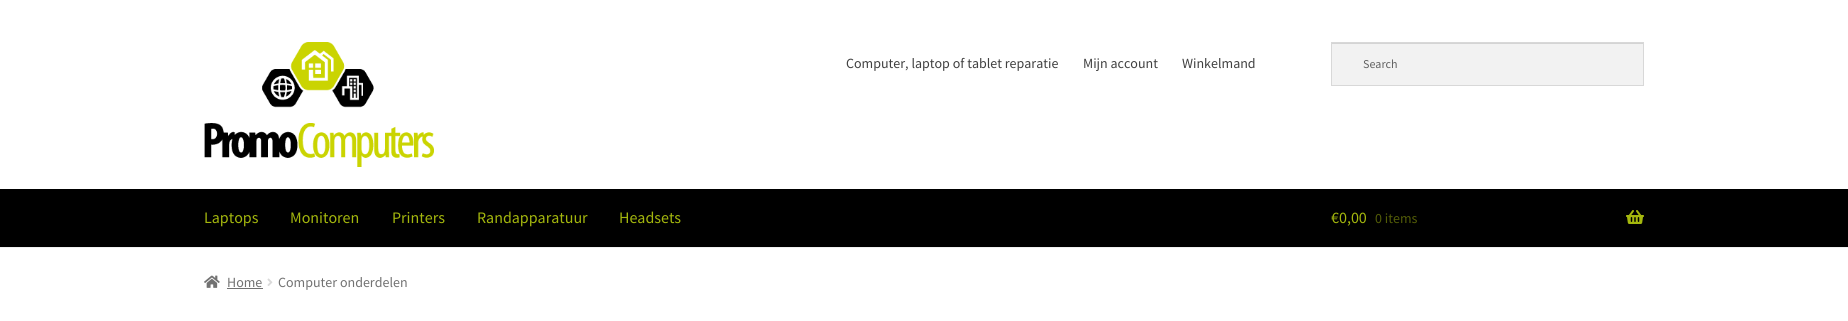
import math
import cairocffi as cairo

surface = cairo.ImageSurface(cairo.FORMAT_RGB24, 1848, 321)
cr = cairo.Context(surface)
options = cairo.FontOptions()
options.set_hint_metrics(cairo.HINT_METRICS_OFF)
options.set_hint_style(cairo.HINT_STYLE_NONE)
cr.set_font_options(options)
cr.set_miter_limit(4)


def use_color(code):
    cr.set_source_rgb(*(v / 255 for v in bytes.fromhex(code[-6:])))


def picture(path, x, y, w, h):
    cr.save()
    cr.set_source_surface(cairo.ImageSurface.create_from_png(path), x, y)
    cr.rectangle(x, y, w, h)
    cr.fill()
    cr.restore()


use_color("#ffffff")
cr.paint()
use_color("#f0f0f0")
cr.rectangle(0, 247, 1848, 1)
cr.fill()
picture("img1.png", 204, 42, 230, 125)
cr.select_font_face("Source Sans Pro")
cr.set_font_size(14)
use_color("#404040")
cr.move_to(846, 68)
cr.show_text("Computer, laptop of tablet reparatie")
cr.move_to(1083, 68)
cr.show_text("Mijn account")
cr.move_to(1182, 68)
cr.show_text("Winkelmand")
use_color("#f2f2f2")
cr.rectangle(1332, 44, 311, 41)
cr.fill()
use_color("#d4d4d4")
cr.rectangle(1332, 43, 311, 1)
cr.fill()
cr.rectangle(1331.5, 42.5, 312, 43)
use_color("#d8d8d8")
cr.set_line_width(1)
cr.stroke()
cr.set_font_size(12)
use_color("#616161")
cr.move_to(1363, 68)
cr.show_text("Search")
use_color("#000000")
cr.rectangle(0, 189, 1848, 58)
cr.fill()
cr.set_font_size(16)
use_color("#a4b70d")
cr.move_to(204, 223)
cr.show_text("Laptops")
cr.move_to(290, 223)
cr.show_text("Monitoren")
cr.move_to(392, 223)
cr.show_text("Printers")
cr.move_to(477, 223)
cr.show_text("Randapparatuur")
cr.move_to(619, 223)
cr.show_text("Headsets")
cr.move_to(1331, 223)
cr.show_text("€0,00")
cr.set_font_size(14)
use_color("#525c07")
cr.move_to(1375, 223)
cr.show_text("0 items")
picture("img2.png", 1626, 210, 18, 14)
picture("img3.png", 204, 275, 16, 13)
use_color("#727272")
cr.move_to(227, 287)
cr.show_text("Home")
cr.rectangle(227, 288, 36, 1)
cr.fill()
picture("img4.png", 267, 278, 6, 8)
cr.move_to(278, 287)
cr.show_text("Computer onderdelen")
surface.write_to_png("result.png")
